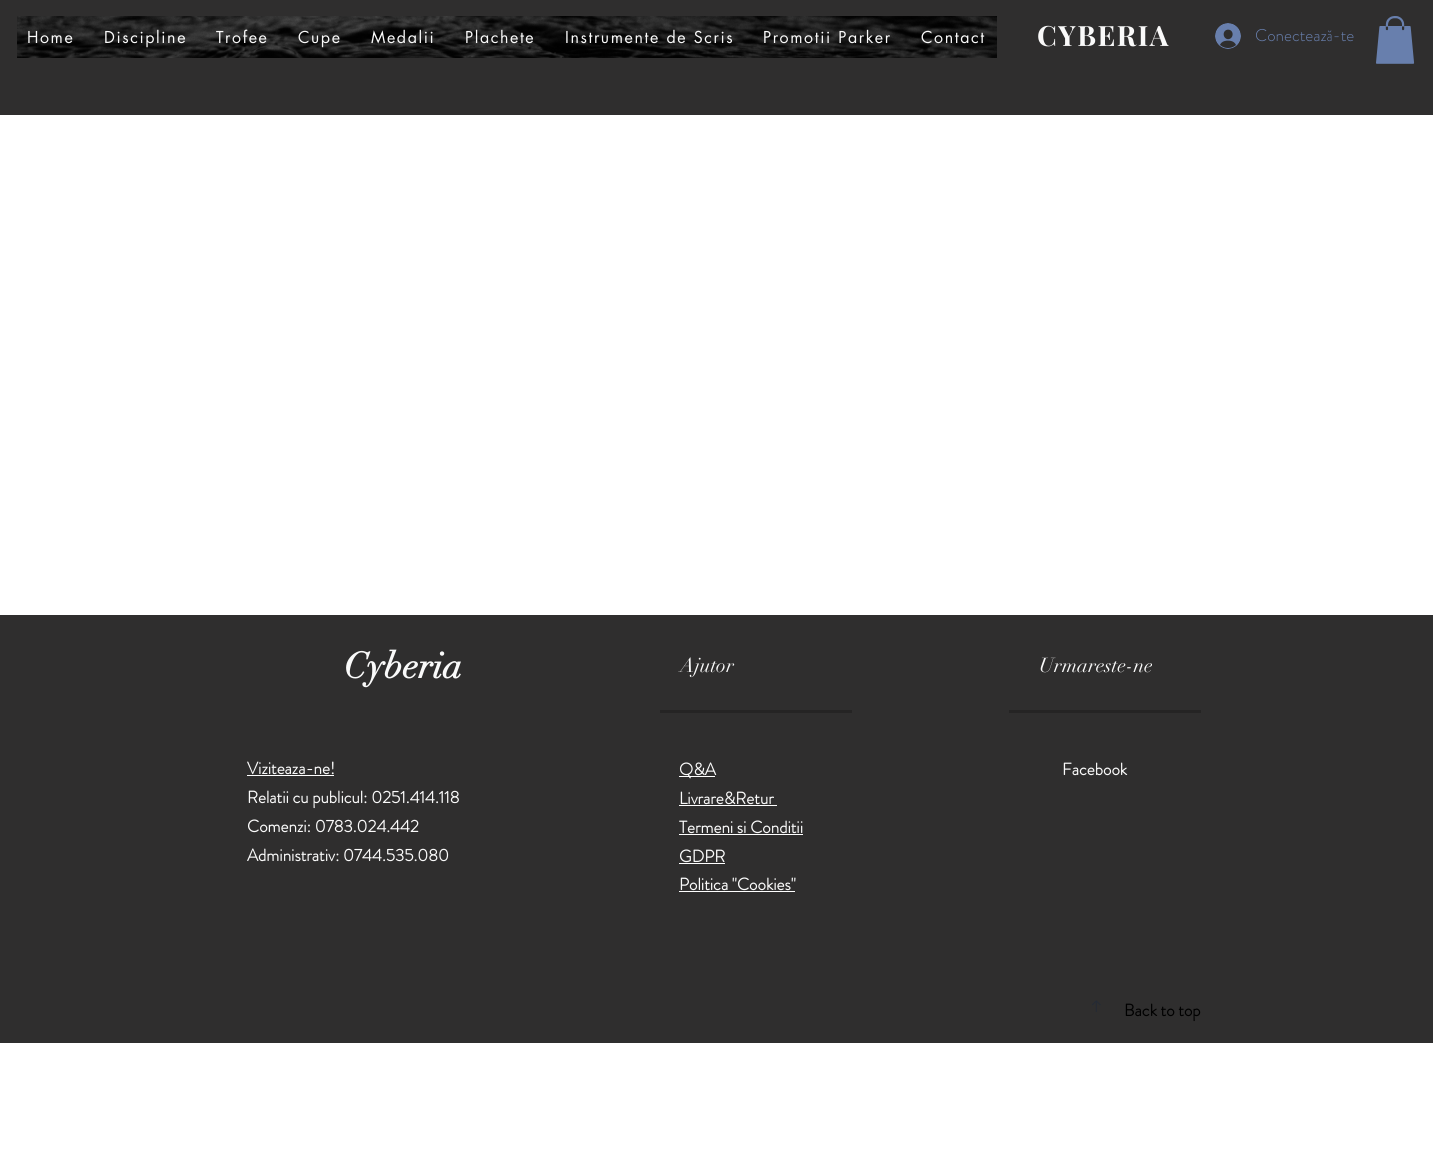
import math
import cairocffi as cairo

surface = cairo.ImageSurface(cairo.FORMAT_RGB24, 1433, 1172)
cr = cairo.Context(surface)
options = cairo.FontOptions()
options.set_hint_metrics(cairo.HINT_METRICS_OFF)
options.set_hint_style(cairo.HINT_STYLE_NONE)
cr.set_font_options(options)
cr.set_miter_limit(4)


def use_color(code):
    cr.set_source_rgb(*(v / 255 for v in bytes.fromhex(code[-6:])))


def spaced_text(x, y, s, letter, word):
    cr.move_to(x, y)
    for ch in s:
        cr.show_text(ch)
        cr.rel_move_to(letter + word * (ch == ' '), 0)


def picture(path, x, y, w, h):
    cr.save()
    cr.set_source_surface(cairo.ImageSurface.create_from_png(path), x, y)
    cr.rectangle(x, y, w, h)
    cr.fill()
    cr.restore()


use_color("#ffffff")
cr.paint()
use_color("#2f2e2e")
cr.rectangle(0, 0, 1433, 115)
cr.fill()
picture("img1.png", 17, 16, 980, 42)
cr.select_font_face("futura")
cr.set_font_size(16)
use_color("#fafafa")
spaced_text(27, 43, "Home", 1.6, 0)
spaced_text(104, 43, "Discipline", 1.6, 0)
spaced_text(216, 43, "Trofee", 1.6, 0)
spaced_text(298, 43, "Cupe", 1.6, 0)
spaced_text(371, 43, "Medalii", 1.6, 0)
spaced_text(465, 43, "Plachete", 1.6, 0)
spaced_text(565, 43, "Instrumente de Scris", 1.6, 0)
spaced_text(763, 43, "Promotii Parker", 1.6, 0)
spaced_text(921, 43, "Contact", 1.6, 0)
cr.select_font_face("Playfair Display", cairo.FONT_SLANT_NORMAL, cairo.FONT_WEIGHT_BOLD)
cr.set_font_size(28)
spaced_text(1037, 46, "CYBERIA", 1.5, 0)
picture("img2.png", 1215, 23, 26, 26)
cr.select_font_face("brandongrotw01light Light")
cr.set_font_size(17)
use_color("#687fad")
cr.move_to(1255, 41)
cr.show_text("Conectează-te")
picture("img3.png", 1376, 16, 39, 48)
use_color("#2f2e2e")
cr.rectangle(0, 615, 1433, 428)
cr.fill()
cr.select_font_face("didot", cairo.FONT_SLANT_NORMAL, cairo.FONT_WEIGHT_BOLD)
cr.set_font_size(36)
use_color("#fafafa")
cr.move_to(344, 678)
cr.show_text("Cyberia")
cr.select_font_face("didot")
cr.set_font_size(20)
cr.move_to(680, 672)
cr.show_text("Ajutor")
cr.move_to(1039, 672)
cr.show_text("Urmareste-ne")
use_color("#252424")
cr.rectangle(660, 710, 192, 3)
cr.fill()
cr.rectangle(1009, 710, 192, 3)
cr.fill()
cr.select_font_face("brandongrotw01light", cairo.FONT_SLANT_NORMAL, cairo.FONT_WEIGHT_BOLD)
cr.set_font_size(17)
use_color("#fafafa")
cr.move_to(247, 774)
cr.show_text("Viziteaza-ne!")
use_color("#ffffff")
cr.rectangle(247, 775, 87, 1)
cr.fill()
use_color("#fafafa")
cr.move_to(247, 803)
cr.show_text("Relatii cu publicul: 0251.414.118")
cr.move_to(247, 832)
cr.show_text("Comenzi: 0783.024.442")
cr.move_to(247, 861)
cr.show_text("Administrativ: 0744.535.080")
use_color("#ffffff")
cr.rectangle(679, 776, 36, 1)
cr.fill()
use_color("#fafafa")
cr.move_to(679, 775)
cr.show_text("Q&A")
cr.move_to(679, 804)
cr.show_text("Livrare&Retur")
use_color("#ffffff")
cr.rectangle(679, 805, 98, 1)
cr.fill()
use_color("#fafafa")
cr.move_to(679, 833)
cr.show_text("Termeni si Conditii")
use_color("#ffffff")
cr.rectangle(679, 834, 124, 1)
cr.fill()
use_color("#fafafa")
cr.move_to(679, 862)
cr.show_text("GDPR")
use_color("#ffffff")
cr.rectangle(679, 863, 46, 1)
cr.fill()
use_color("#fafafa")
cr.move_to(679, 890)
cr.show_text("Politica \"Cookies\"")
use_color("#ffffff")
cr.rectangle(679, 891, 116, 1)
cr.fill()
use_color("#fafafa")
cr.move_to(1062, 775)
cr.show_text("Facebook")
picture("img4.png", 1092, 1000, 9, 12)
use_color("#000000")
cr.move_to(1124, 1016)
cr.show_text("Back to top")
surface.write_to_png("result.png")
